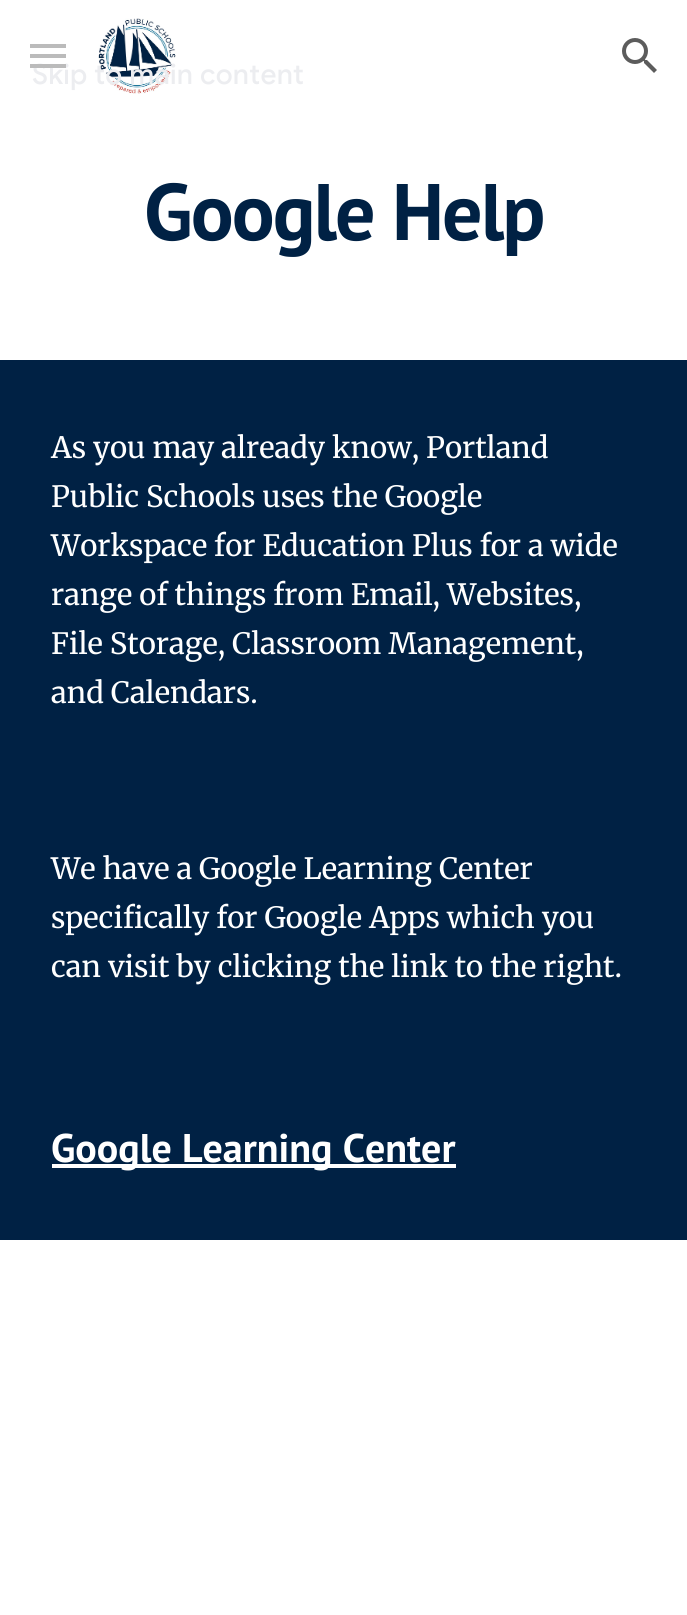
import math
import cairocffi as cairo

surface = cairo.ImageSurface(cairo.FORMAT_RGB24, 687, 1615)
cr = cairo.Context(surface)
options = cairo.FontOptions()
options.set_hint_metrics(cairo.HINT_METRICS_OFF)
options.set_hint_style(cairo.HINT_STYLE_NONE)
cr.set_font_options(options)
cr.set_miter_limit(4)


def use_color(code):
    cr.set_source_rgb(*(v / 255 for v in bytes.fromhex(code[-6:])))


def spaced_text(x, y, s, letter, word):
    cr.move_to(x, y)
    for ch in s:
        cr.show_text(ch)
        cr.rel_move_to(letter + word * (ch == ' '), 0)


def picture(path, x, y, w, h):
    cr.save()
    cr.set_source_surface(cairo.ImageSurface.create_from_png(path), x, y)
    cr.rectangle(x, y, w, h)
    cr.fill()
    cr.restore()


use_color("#ffffff")
cr.paint()
picture("img1.png", 98, 18, 78, 76)
cr.select_font_face("Google Sans Medium")
cr.set_font_size(28)
use_color("#ecedf0")
spaced_text(32, 84, "Skip to main content", 0.25, 0)
use_color("#b2b2b2")
cr.rectangle(30, 44, 36, 4)
cr.fill()
cr.rectangle(30, 54, 36, 4)
cr.fill()
cr.rectangle(30, 64, 36, 4)
cr.fill()
cr.set_source_rgba(1, 1, 1, 0.12)
cr.rectangle(30, 44, 36, 24)
cr.fill()
picture("img2.png", 622, 38, 35, 35)
cr.select_font_face("PT Sans", cairo.FONT_SLANT_NORMAL, cairo.FONT_WEIGHT_BOLD)
cr.set_font_size(80)
use_color("#002144")
spaced_text(144, 240, "Google Help", -2, 0)
cr.rectangle(0, 360, 687, 880)
cr.fill()
cr.select_font_face("Merriweather")
cr.set_font_size(29.3)
use_color("#ffffff")
cr.move_to(51, 458)
cr.show_text("As you may already know, Portland")
cr.move_to(51, 507)
cr.show_text("Public Schools uses the Google")
cr.move_to(51, 556)
cr.show_text("Workspace for Education Plus for a wide")
cr.move_to(51, 605)
cr.show_text("range of things from Email, Websites,")
cr.move_to(51, 654)
cr.show_text("File Storage, Classroom Management,")
cr.move_to(51, 703)
cr.show_text("and Calendars.")
cr.move_to(51, 879)
cr.show_text("We have a Google Learning Center")
cr.move_to(51, 928)
cr.show_text("specifically for Google Apps which you")
cr.move_to(51, 977)
cr.show_text("can visit by clicking the link to the right.")
cr.rectangle(52, 1164, 404, 4)
cr.fill()
cr.select_font_face("PT Sans", cairo.FONT_SLANT_NORMAL, cairo.FONT_WEIGHT_BOLD)
cr.set_font_size(40)
cr.move_to(51, 1162)
cr.show_text("Google Learning Center")
surface.write_to_png("result.png")
